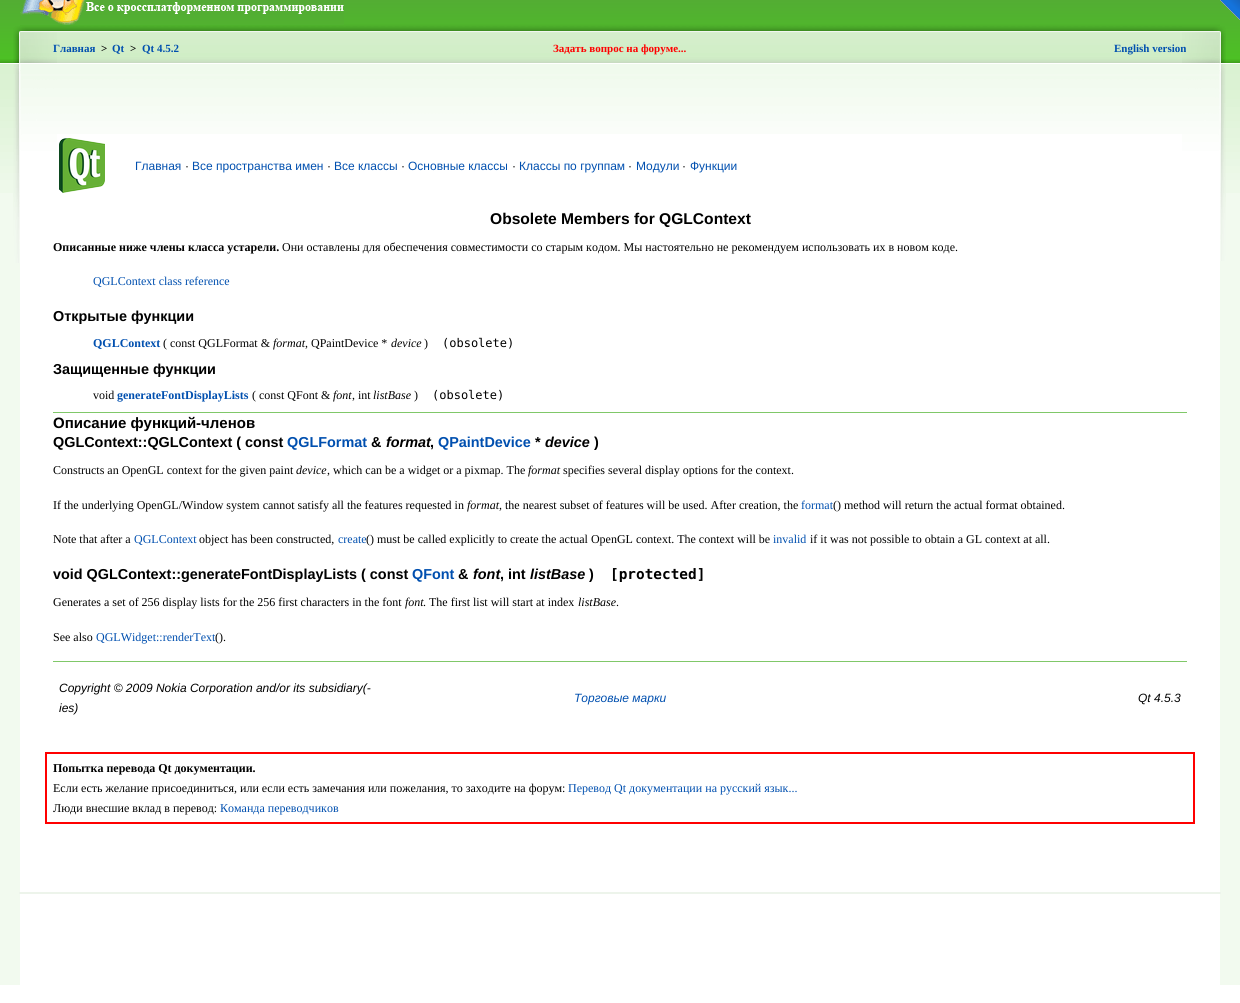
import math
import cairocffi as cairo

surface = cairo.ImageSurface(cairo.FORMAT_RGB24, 1240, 1003)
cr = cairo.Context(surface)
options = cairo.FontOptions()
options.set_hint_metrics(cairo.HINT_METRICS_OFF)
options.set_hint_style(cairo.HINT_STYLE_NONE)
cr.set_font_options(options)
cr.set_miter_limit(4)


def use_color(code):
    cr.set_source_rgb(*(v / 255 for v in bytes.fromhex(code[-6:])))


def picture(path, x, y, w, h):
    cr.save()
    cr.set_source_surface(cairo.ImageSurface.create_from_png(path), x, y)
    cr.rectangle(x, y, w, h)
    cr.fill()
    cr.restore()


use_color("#ffffff")
cr.paint()
picture("img2.png", 0, 0, 1240, 193)
picture("img1.png", 1220, 0, 20, 20)
use_color("#f2faef")
cr.rectangle(0, 193, 1240, 792)
cr.fill()
picture("img4.png", 20, 22, 1200, 112)
picture("img3.png", 20, 0, 324, 25)
use_color("#ffffff")
cr.rectangle(20, 134, 1200, 851)
cr.fill()
picture("img5.png", 1182, 26, 44, 235)
picture("img6.png", 13, 26, 44, 237)
cr.select_font_face("Liberation Serif", cairo.FONT_SLANT_NORMAL, cairo.FONT_WEIGHT_BOLD)
cr.set_font_size(11)
use_color("#004faf")
cr.move_to(53, 52)
cr.show_text("Главная")
use_color("#000000")
cr.move_to(101, 52)
cr.show_text(">")
use_color("#004faf")
cr.move_to(112, 52)
cr.show_text("Qt")
use_color("#000000")
cr.move_to(130, 52)
cr.show_text(">")
use_color("#004faf")
cr.move_to(142, 52)
cr.show_text("Qt 4.5.2")
use_color("#ff0000")
cr.move_to(553, 52)
cr.show_text("Задать вопрос на форуме...")
use_color("#004faf")
cr.move_to(1114, 52)
cr.show_text("English version")
use_color("#edf4eb")
cr.rectangle(19, 892, 1202, 2)
cr.fill()
picture("img7.png", 59, 138, 46, 55)
cr.select_font_face("Liberation Sans")
cr.set_font_size(12)
use_color("#004faf")
cr.move_to(135, 170)
cr.show_text("Главная")
use_color("#000000")
cr.move_to(185, 170)
cr.show_text("·")
use_color("#004faf")
cr.move_to(192, 170)
cr.show_text("Все пространства имен")
use_color("#000000")
cr.move_to(327, 170)
cr.show_text("·")
use_color("#004faf")
cr.move_to(334, 170)
cr.show_text("Все классы")
use_color("#000000")
cr.move_to(401, 170)
cr.show_text("·")
use_color("#004faf")
cr.move_to(408, 170)
cr.show_text("Основные классы")
use_color("#000000")
cr.move_to(512, 170)
cr.show_text("·")
use_color("#004faf")
cr.move_to(519, 170)
cr.show_text("Классы по группам")
use_color("#000000")
cr.move_to(628, 170)
cr.show_text("·")
use_color("#004faf")
cr.move_to(636, 170)
cr.show_text("Модули")
use_color("#000000")
cr.move_to(682, 170)
cr.show_text("·")
use_color("#004faf")
cr.move_to(690, 170)
cr.show_text("Функции")
cr.select_font_face("Liberation Sans", cairo.FONT_SLANT_NORMAL, cairo.FONT_WEIGHT_BOLD)
cr.set_font_size(15.6)
use_color("#000000")
cr.move_to(490, 224)
cr.show_text("Obsolete Members for QGLContext")
cr.select_font_face("Liberation Serif", cairo.FONT_SLANT_NORMAL, cairo.FONT_WEIGHT_BOLD)
cr.set_font_size(12)
cr.move_to(53, 251)
cr.show_text("Описанные ниже члены класса устарели.")
cr.select_font_face("Liberation Serif")
cr.move_to(282, 251)
cr.show_text("Они оставлены для обеспечения совместимости со старым кодом. Мы настоятельно не рекомендуем использовать их в новом коде.")
use_color("#004faf")
cr.move_to(93, 285)
cr.show_text("QGLContext class reference")
cr.select_font_face("Liberation Sans", cairo.FONT_SLANT_NORMAL, cairo.FONT_WEIGHT_BOLD)
cr.set_font_size(14.4)
use_color("#000000")
cr.move_to(53, 321)
cr.show_text("Открытые функции")
cr.select_font_face("Liberation Serif", cairo.FONT_SLANT_NORMAL, cairo.FONT_WEIGHT_BOLD)
cr.set_font_size(12)
use_color("#004faf")
cr.move_to(93, 347)
cr.show_text("QGLContext")
cr.select_font_face("Liberation Serif")
use_color("#000000")
cr.move_to(163, 347)
cr.show_text("( const QGLFormat &")
cr.select_font_face("Liberation Serif", cairo.FONT_SLANT_ITALIC)
cr.move_to(273, 347)
cr.show_text("format")
cr.select_font_face("Liberation Serif")
cr.move_to(305, 347)
cr.show_text(", QPaintDevice *")
cr.select_font_face("Liberation Serif", cairo.FONT_SLANT_ITALIC)
cr.move_to(391, 347)
cr.show_text("device")
cr.select_font_face("Liberation Serif")
cr.move_to(424, 347)
cr.show_text(")")
cr.select_font_face("DejaVu Sans Mono")
cr.move_to(442, 347)
cr.show_text("(obsolete)")
cr.select_font_face("Liberation Sans", cairo.FONT_SLANT_NORMAL, cairo.FONT_WEIGHT_BOLD)
cr.set_font_size(14.4)
cr.move_to(53, 374)
cr.show_text("Защищенные функции")
cr.select_font_face("Liberation Serif")
cr.set_font_size(12)
cr.move_to(93, 399)
cr.show_text("void")
cr.select_font_face("Liberation Serif", cairo.FONT_SLANT_NORMAL, cairo.FONT_WEIGHT_BOLD)
use_color("#004faf")
cr.move_to(117, 399)
cr.show_text("generateFontDisplayLists")
cr.select_font_face("Liberation Serif")
use_color("#000000")
cr.move_to(252, 399)
cr.show_text("( const QFont &")
cr.select_font_face("Liberation Serif", cairo.FONT_SLANT_ITALIC)
cr.move_to(333, 399)
cr.show_text("font")
cr.select_font_face("Liberation Serif")
cr.move_to(352, 399)
cr.show_text(", int")
cr.select_font_face("Liberation Serif", cairo.FONT_SLANT_ITALIC)
cr.move_to(373, 399)
cr.show_text("listBase")
cr.select_font_face("Liberation Serif")
cr.move_to(414, 399)
cr.show_text(")")
cr.select_font_face("DejaVu Sans Mono")
cr.move_to(432, 399)
cr.show_text("(obsolete)")
use_color("#80c869")
cr.rectangle(53, 412, 1134, 1)
cr.fill()
cr.select_font_face("Liberation Sans", cairo.FONT_SLANT_NORMAL, cairo.FONT_WEIGHT_BOLD)
cr.set_font_size(15)
use_color("#000000")
cr.move_to(53, 428)
cr.show_text("Описание функций-членов")
cr.set_font_size(14.4)
cr.move_to(53, 447)
cr.show_text("QGLContext::QGLContext ( const")
use_color("#004faf")
cr.move_to(287, 447)
cr.show_text("QGLFormat")
use_color("#000000")
cr.move_to(371, 447)
cr.show_text("&")
cr.select_font_face("Liberation Sans", cairo.FONT_SLANT_ITALIC, cairo.FONT_WEIGHT_BOLD)
cr.move_to(386, 447)
cr.show_text("format")
cr.select_font_face("Liberation Sans", cairo.FONT_SLANT_NORMAL, cairo.FONT_WEIGHT_BOLD)
use_color("#004faf")
cr.move_to(438, 447)
cr.show_text("QPaintDevice")
use_color("#000000")
cr.move_to(535, 447)
cr.show_text("*")
cr.select_font_face("Liberation Sans", cairo.FONT_SLANT_ITALIC, cairo.FONT_WEIGHT_BOLD)
cr.move_to(545, 447)
cr.show_text("device")
cr.select_font_face("Liberation Sans", cairo.FONT_SLANT_NORMAL, cairo.FONT_WEIGHT_BOLD)
cr.move_to(594, 447)
cr.show_text(")")
cr.move_to(430, 447)
cr.show_text(",")
cr.select_font_face("Liberation Serif")
cr.set_font_size(12)
cr.move_to(53, 474)
cr.show_text("Constructs an OpenGL context for the given paint")
cr.select_font_face("Liberation Serif", cairo.FONT_SLANT_ITALIC)
cr.move_to(296, 474)
cr.show_text("device")
cr.select_font_face("Liberation Serif")
cr.move_to(327, 474)
cr.show_text(", which can be a widget or a pixmap. The")
cr.select_font_face("Liberation Serif", cairo.FONT_SLANT_ITALIC)
cr.move_to(528, 474)
cr.show_text("format")
cr.select_font_face("Liberation Serif")
cr.move_to(563, 474)
cr.show_text("specifies several display options for the context.")
cr.move_to(53, 509)
cr.show_text("If the underlying OpenGL/Window system cannot satisfy all the features requested in")
cr.select_font_face("Liberation Serif", cairo.FONT_SLANT_ITALIC)
cr.move_to(467, 509)
cr.show_text("format")
cr.select_font_face("Liberation Serif")
cr.move_to(499, 509)
cr.show_text(", the nearest subset of features will be used. After creation, the")
use_color("#004faf")
cr.move_to(801, 509)
cr.show_text("format")
use_color("#000000")
cr.move_to(833, 509)
cr.show_text("() method will return the actual format obtained.")
cr.move_to(53, 543)
cr.show_text("Note that after a")
use_color("#004faf")
cr.move_to(134, 543)
cr.show_text("QGLContext")
use_color("#000000")
cr.move_to(199, 543)
cr.show_text("object has been constructed,")
use_color("#004faf")
cr.move_to(338, 543)
cr.show_text("create")
use_color("#000000")
cr.move_to(366, 543)
cr.show_text("() must be called explicitly to create the actual OpenGL context. The context will be")
use_color("#004faf")
cr.move_to(773, 543)
cr.show_text("invalid")
use_color("#000000")
cr.move_to(810, 543)
cr.show_text("if it was not possible to obtain a GL context at all.")
cr.select_font_face("Liberation Sans", cairo.FONT_SLANT_NORMAL, cairo.FONT_WEIGHT_BOLD)
cr.set_font_size(14.4)
cr.move_to(53, 579)
cr.show_text("void QGLContext::generateFontDisplayLists ( const")
use_color("#004faf")
cr.move_to(412, 579)
cr.show_text("QFont")
use_color("#000000")
cr.move_to(458, 579)
cr.show_text("&")
cr.select_font_face("Liberation Sans", cairo.FONT_SLANT_ITALIC, cairo.FONT_WEIGHT_BOLD)
cr.move_to(473, 579)
cr.show_text("font")
cr.select_font_face("Liberation Sans", cairo.FONT_SLANT_NORMAL, cairo.FONT_WEIGHT_BOLD)
cr.move_to(500, 579)
cr.show_text(", int")
cr.select_font_face("Liberation Sans", cairo.FONT_SLANT_ITALIC, cairo.FONT_WEIGHT_BOLD)
cr.move_to(530, 579)
cr.show_text("listBase")
cr.select_font_face("Liberation Sans", cairo.FONT_SLANT_NORMAL, cairo.FONT_WEIGHT_BOLD)
cr.move_to(589, 579)
cr.show_text(")")
cr.select_font_face("DejaVu Sans Mono", cairo.FONT_SLANT_NORMAL, cairo.FONT_WEIGHT_BOLD)
cr.move_to(610, 579)
cr.show_text("[protected]")
cr.select_font_face("Liberation Serif")
cr.set_font_size(12)
cr.move_to(53, 606)
cr.show_text("Generates a set of 256 display lists for the 256 first characters in the font")
cr.select_font_face("Liberation Serif", cairo.FONT_SLANT_ITALIC)
cr.move_to(405, 606)
cr.show_text("font")
cr.select_font_face("Liberation Serif")
cr.move_to(423, 606)
cr.show_text(". The first list will start at index")
cr.select_font_face("Liberation Serif", cairo.FONT_SLANT_ITALIC)
cr.move_to(578, 606)
cr.show_text("listBase")
cr.select_font_face("Liberation Serif")
cr.move_to(616, 606)
cr.show_text(".")
cr.move_to(53, 641)
cr.show_text("See also")
use_color("#004faf")
cr.move_to(96, 641)
cr.show_text("QGLWidget::renderText")
use_color("#000000")
cr.move_to(215, 641)
cr.show_text("().")
use_color("#80c869")
cr.rectangle(53, 661, 1134, 1)
cr.fill()
cr.select_font_face("Liberation Sans", cairo.FONT_SLANT_ITALIC)
use_color("#000000")
cr.move_to(59, 692)
cr.show_text("Copyright © 2009 Nokia Corporation and/or its subsidiary(-")
cr.move_to(59, 712)
cr.show_text("ies)")
use_color("#004faf")
cr.move_to(574, 702)
cr.show_text("Торговые марки")
use_color("#000000")
cr.move_to(1138, 702)
cr.show_text("Qt 4.5.3")
cr.rectangle(45.5, 752.5, 1149, 71)
use_color("#ff0000")
cr.set_line_width(1)
cr.stroke()
cr.rectangle(46.5, 753.5, 1147, 69)
cr.stroke()
cr.select_font_face("Liberation Serif", cairo.FONT_SLANT_NORMAL, cairo.FONT_WEIGHT_BOLD)
use_color("#000000")
cr.move_to(53, 772)
cr.show_text("Попытка перевода Qt документации.")
cr.select_font_face("Liberation Serif")
cr.move_to(53, 792)
cr.show_text("Если есть желание присоединиться, или если есть замечания или пожелания, то заходите на форум:")
use_color("#004faf")
cr.move_to(568, 792)
cr.show_text("Перевод Qt документации на русский язык...")
use_color("#000000")
cr.move_to(53, 812)
cr.show_text("Люди внесшие вклад в перевод:")
use_color("#004faf")
cr.move_to(220, 812)
cr.show_text("Команда переводчиков")
surface.write_to_png("result.png")
